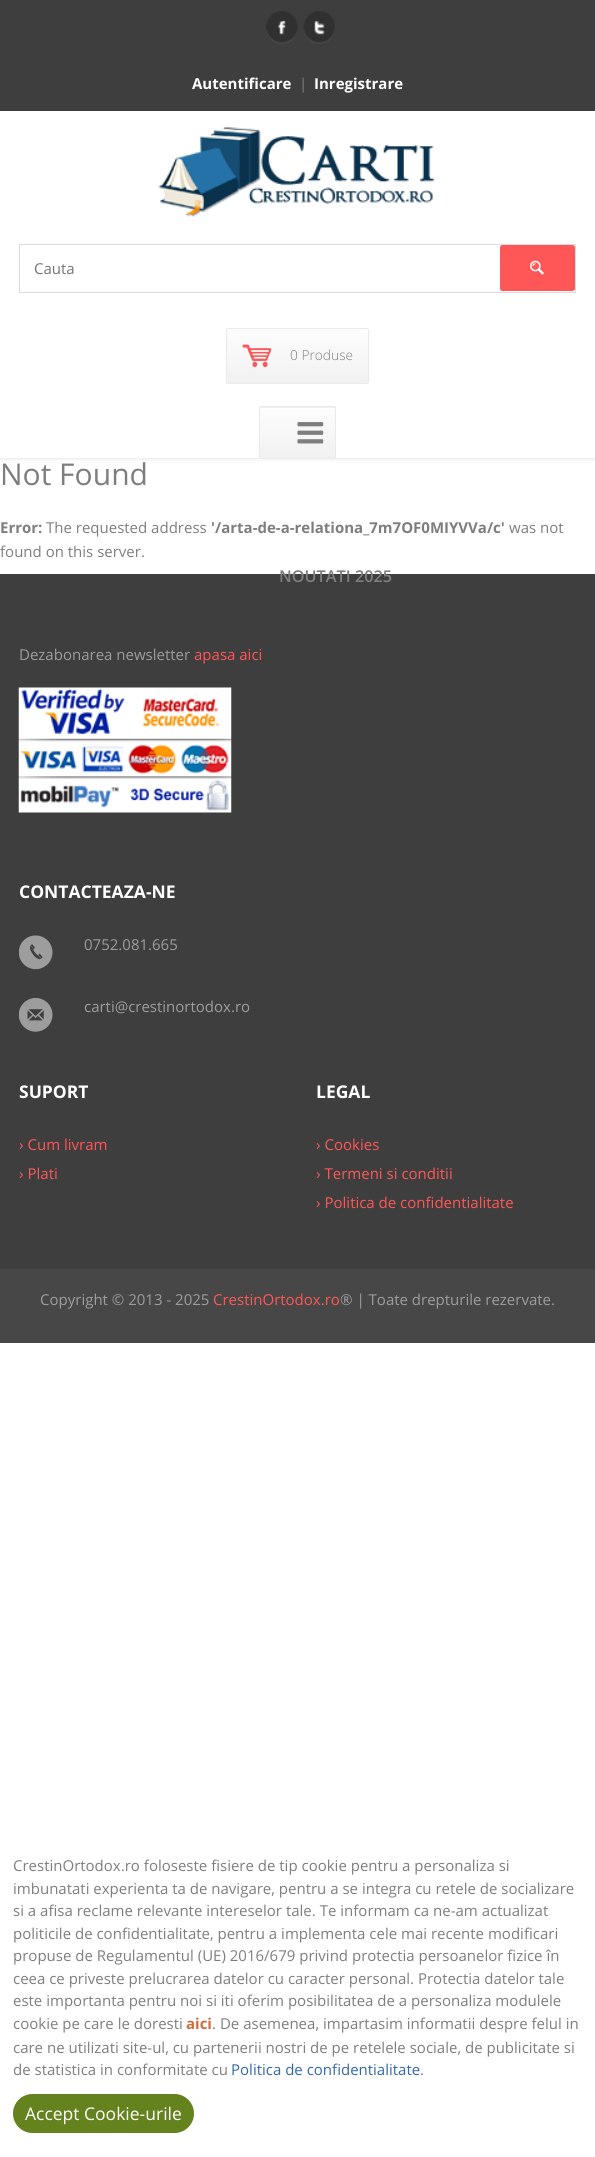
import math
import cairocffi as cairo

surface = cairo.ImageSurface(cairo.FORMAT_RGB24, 595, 2157)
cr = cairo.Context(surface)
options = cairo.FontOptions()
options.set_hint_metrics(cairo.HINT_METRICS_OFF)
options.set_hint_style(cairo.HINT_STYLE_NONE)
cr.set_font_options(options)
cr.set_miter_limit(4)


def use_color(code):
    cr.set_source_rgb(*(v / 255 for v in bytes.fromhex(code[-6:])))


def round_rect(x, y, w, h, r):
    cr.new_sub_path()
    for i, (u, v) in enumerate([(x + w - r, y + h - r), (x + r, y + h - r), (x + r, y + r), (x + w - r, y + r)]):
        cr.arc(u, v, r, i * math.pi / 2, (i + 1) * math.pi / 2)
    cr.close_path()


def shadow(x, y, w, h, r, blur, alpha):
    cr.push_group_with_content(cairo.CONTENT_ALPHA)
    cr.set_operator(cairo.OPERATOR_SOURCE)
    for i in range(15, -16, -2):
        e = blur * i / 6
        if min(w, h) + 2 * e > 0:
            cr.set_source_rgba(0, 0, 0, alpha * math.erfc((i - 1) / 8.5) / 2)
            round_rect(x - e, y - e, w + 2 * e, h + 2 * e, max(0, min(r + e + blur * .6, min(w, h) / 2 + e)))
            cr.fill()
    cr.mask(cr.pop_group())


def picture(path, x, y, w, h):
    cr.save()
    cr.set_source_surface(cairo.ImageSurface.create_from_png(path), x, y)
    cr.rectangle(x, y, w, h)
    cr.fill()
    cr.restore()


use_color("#ffffff")
cr.paint()
use_color("#000000")
shadow(0, -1, 595, 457, 0, 3, 0.3)
use_color("#ffffff")
cr.rectangle(0, 111, 595, 347)
cr.fill()
use_color("#3f3e3e")
cr.rectangle(0, 0, 595, 111)
cr.fill()
picture("img1.png", 266, 11, 32, 33)
picture("img2.png", 303, 11, 32, 33)
cr.select_font_face("Open Sans", cairo.FONT_SLANT_NORMAL, cairo.FONT_WEIGHT_BOLD)
cr.set_font_size(15)
use_color("#ffffff")
cr.move_to(192, 89)
cr.show_text("Autentificare")
cr.select_font_face("Open Sans")
use_color("#7e7e7e")
cr.move_to(299, 89)
cr.show_text("|")
cr.select_font_face("Open Sans", cairo.FONT_SLANT_NORMAL, cairo.FONT_WEIGHT_BOLD)
use_color("#ffffff")
cr.move_to(314, 89)
cr.show_text("Inregistrare")
picture("img3.png", 158, 127, 276, 90)
cr.rectangle(19.5, 244.5, 556, 48)
use_color("#dcdcdc")
cr.set_line_width(1)
cr.stroke()
cr.select_font_face("Open Sans")
use_color("#757575")
cr.move_to(34, 274)
cr.show_text("Cauta")
use_color("#ff5757")
round_rect(500, 245, 75, 46, 2.5)
cr.fill()
picture("img4.png", 530, 260, 14, 15)
cr.save()
round_rect(226, 328, 143, 56, 2.5)
cr.clip()
gradient = cairo.LinearGradient(298, 329, 298, 383)
gradient.add_color_stop_rgba(0, 0.992, 0.992, 0.992, 1)
gradient.add_color_stop_rgba(1, 0.945, 0.945, 0.945, 1)
cr.set_source(gradient)
cr.rectangle(226, 329, 143, 54)
cr.fill()
cr.restore()
round_rect(226.5, 328.5, 142, 55, 2)
use_color("#eaeaea")
cr.stroke()
picture("img5.png", 242, 344, 30, 24)
cr.select_font_face("Open Sans Light")
cr.set_font_size(13.75)
use_color("#7e7e7e")
cr.move_to(290, 360)
cr.show_text("0 Produse")
cr.save()
round_rect(259, 406, 77, 53, 2.5)
cr.clip()
gradient = cairo.LinearGradient(298, 358, 298, 408)
gradient.add_color_stop_rgba(0, 0.992, 0.992, 0.992, 1)
gradient.add_color_stop_rgba(1, 0.945, 0.945, 0.945, 1)
cr.set_source(gradient)
cr.rectangle(259, 406, 77, 2)
cr.fill()
cr.restore()
gradient = cairo.LinearGradient(298, 408, 298, 458)
gradient.add_color_stop_rgba(0, 0.992, 0.992, 0.992, 1)
gradient.add_color_stop_rgba(1, 0.945, 0.945, 0.945, 1)
cr.set_source(gradient)
cr.rectangle(259, 410, 77, 48)
cr.fill()
round_rect(259.5, 406.5, 76, 52, 2)
use_color("#eaeaea")
cr.stroke()
picture("img6.png", 297, 422, 27, 22)
use_color("#3f3e3e")
cr.rectangle(0, 574, 595, 695)
cr.fill()
cr.select_font_face("Open Sans SemiBold")
cr.set_font_size(16.25)
use_color("#7e7e7e")
cr.move_to(279, 582)
cr.show_text("NOUTATI 2025")
cr.select_font_face("Open Sans")
cr.set_font_size(30)
cr.move_to(0, 485)
cr.show_text("Not Found")
cr.select_font_face("Open Sans", cairo.FONT_SLANT_NORMAL, cairo.FONT_WEIGHT_BOLD)
cr.set_font_size(15)
cr.move_to(0, 533)
cr.show_text("Error:")
cr.select_font_face("Open Sans")
cr.move_to(46, 533)
cr.show_text("The requested address")
cr.select_font_face("Open Sans", cairo.FONT_SLANT_NORMAL, cairo.FONT_WEIGHT_BOLD)
cr.move_to(211, 533)
cr.show_text("'/arta-de-a-relationa_7m7OF0MIYVVa/c'")
cr.select_font_face("Open Sans")
cr.move_to(509, 533)
cr.show_text("was not")
cr.move_to(0, 557)
cr.show_text("found on this server.")
use_color("#9d9d9d")
cr.move_to(19, 660)
cr.show_text("Dezabonarea newsletter")
use_color("#ff5757")
cr.move_to(194, 660)
cr.show_text("apasa aici")
picture("img7.png", 18, 687, 214, 126)
cr.select_font_face("Open Sans", cairo.FONT_SLANT_NORMAL, cairo.FONT_WEIGHT_BOLD)
cr.set_font_size(17.5)
use_color("#ffffff")
cr.move_to(19, 898)
cr.show_text("CONTACTEAZA-NE")
picture("img8.png", 19, 935, 34, 35)
cr.select_font_face("Open Sans")
cr.set_font_size(15)
use_color("#9d9d9d")
cr.move_to(84, 950)
cr.show_text("0752.081.665")
picture("img9.png", 19, 998, 34, 34)
cr.move_to(84, 1012)
cr.show_text("carti@crestinortodox.ro")
cr.select_font_face("Open Sans", cairo.FONT_SLANT_NORMAL, cairo.FONT_WEIGHT_BOLD)
cr.set_font_size(17.5)
use_color("#ffffff")
cr.move_to(19, 1098)
cr.show_text("SUPORT")
cr.select_font_face("Open Sans")
cr.set_font_size(15)
use_color("#ff5757")
cr.move_to(19, 1150)
cr.show_text("› Cum livram")
cr.move_to(19, 1179)
cr.show_text("› Plati")
cr.select_font_face("Open Sans", cairo.FONT_SLANT_NORMAL, cairo.FONT_WEIGHT_BOLD)
cr.set_font_size(17.5)
use_color("#ffffff")
cr.move_to(316, 1098)
cr.show_text("LEGAL")
cr.select_font_face("Open Sans")
cr.set_font_size(15)
use_color("#ff5757")
cr.move_to(316, 1150)
cr.show_text("› Cookies")
cr.move_to(316, 1179)
cr.show_text("› Termeni si conditii")
cr.move_to(316, 1208)
cr.show_text("› Politica de confidentialitate")
use_color("#474747")
cr.rectangle(0, 1269, 595, 74)
cr.fill()
use_color("#9d9d9d")
cr.move_to(40, 1305)
cr.show_text("Copyright © 2013 - 2025")
use_color("#ff5757")
cr.move_to(213, 1305)
cr.show_text("CrestinOrtodox.ro")
use_color("#9d9d9d")
cr.move_to(340, 1305)
cr.show_text("® | Toate drepturile rezervate.")
use_color("#7e7e7e")
cr.move_to(13, 1871)
cr.show_text("CrestinOrtodox.ro foloseste fisiere de tip cookie pentru a personaliza si")
cr.move_to(13, 1894)
cr.show_text("imbunatati experienta ta de navigare, pentru a se integra cu retele de socializare")
cr.move_to(13, 1916)
cr.show_text("si a afisa reclame relevante intereselor tale. Te informam ca ne-am actualizat")
cr.move_to(13, 1939)
cr.show_text("politicile de confidentialitate, pentru a implementa cele mai recente modificari")
cr.move_to(13, 1961)
cr.show_text("propuse de Regulamentul (UE) 2016/679 privind protectia persoanelor fizice în")
cr.move_to(13, 1984)
cr.show_text("ceea ce priveste prelucrarea datelor cu caracter personal. Protectia datelor tale")
cr.move_to(13, 2006)
cr.show_text("este importanta pentru noi si iti oferim posibilitatea de a personaliza modulele")
cr.move_to(13, 2029)
cr.show_text("cookie pe care le doresti")
cr.select_font_face("Open Sans", cairo.FONT_SLANT_NORMAL, cairo.FONT_WEIGHT_BOLD)
use_color("#cd6d40")
cr.move_to(186, 2029)
cr.show_text("aici")
cr.select_font_face("Open Sans")
use_color("#7e7e7e")
cr.move_to(212, 2029)
cr.show_text(". De asemenea, impartasim informatii despre felul in")
cr.move_to(13, 2053)
cr.show_text("care ne utilizati site-ul, cu partenerii nostri de pe retelele sociale, de publicitate si")
cr.move_to(13, 2075)
cr.show_text("de statistica in conformitate cu")
use_color("#3169a8")
cr.move_to(231, 2075)
cr.show_text("Politica de confidentialitate")
use_color("#7e7e7e")
cr.move_to(420, 2075)
cr.show_text(".")
use_color("#64821e")
round_rect(13, 2094, 181, 39, 19.5)
cr.fill()
cr.set_font_size(17.5)
use_color("#ffffff")
cr.move_to(25, 2120)
cr.show_text("Accept Cookie-urile")
surface.write_to_png("result.png")
